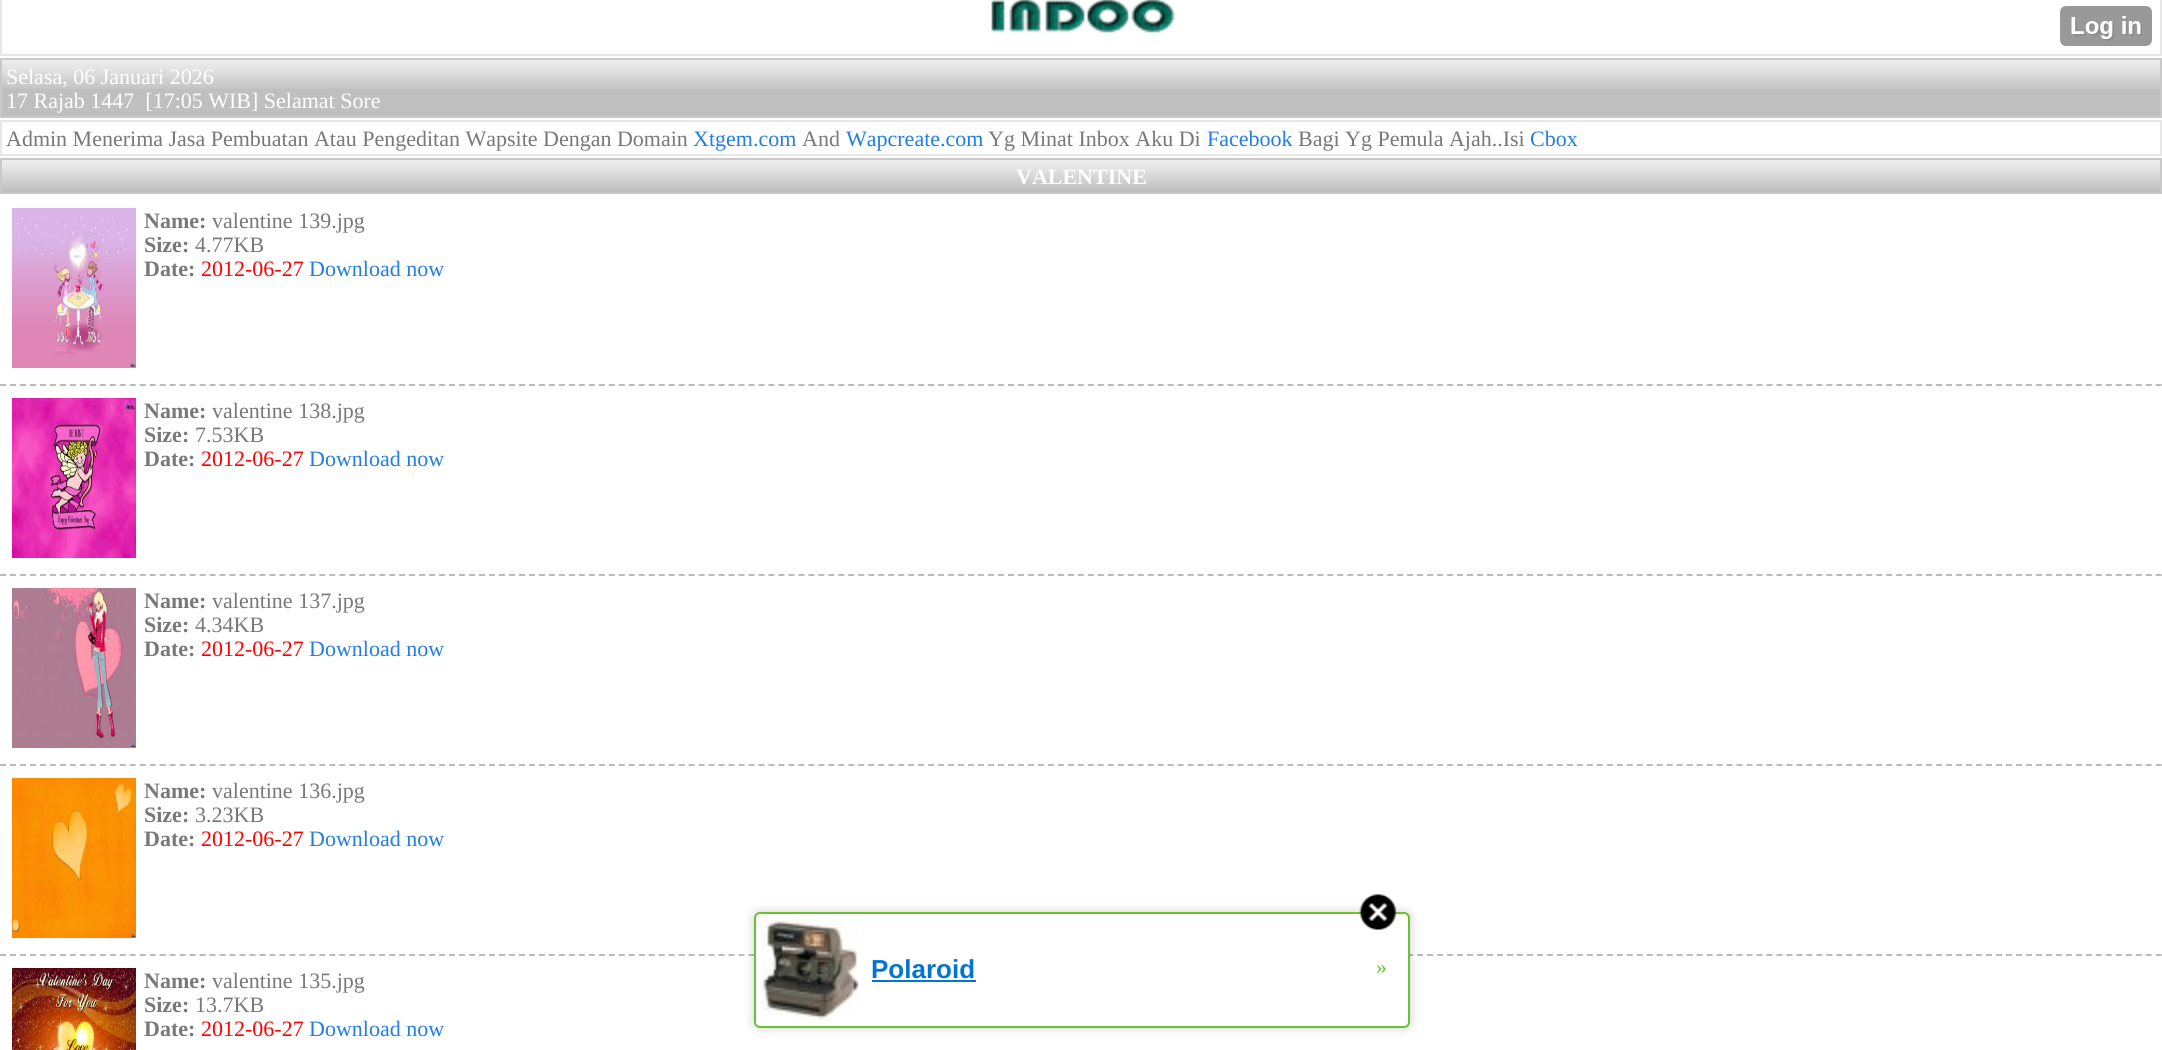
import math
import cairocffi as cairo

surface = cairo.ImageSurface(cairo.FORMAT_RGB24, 2162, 1050)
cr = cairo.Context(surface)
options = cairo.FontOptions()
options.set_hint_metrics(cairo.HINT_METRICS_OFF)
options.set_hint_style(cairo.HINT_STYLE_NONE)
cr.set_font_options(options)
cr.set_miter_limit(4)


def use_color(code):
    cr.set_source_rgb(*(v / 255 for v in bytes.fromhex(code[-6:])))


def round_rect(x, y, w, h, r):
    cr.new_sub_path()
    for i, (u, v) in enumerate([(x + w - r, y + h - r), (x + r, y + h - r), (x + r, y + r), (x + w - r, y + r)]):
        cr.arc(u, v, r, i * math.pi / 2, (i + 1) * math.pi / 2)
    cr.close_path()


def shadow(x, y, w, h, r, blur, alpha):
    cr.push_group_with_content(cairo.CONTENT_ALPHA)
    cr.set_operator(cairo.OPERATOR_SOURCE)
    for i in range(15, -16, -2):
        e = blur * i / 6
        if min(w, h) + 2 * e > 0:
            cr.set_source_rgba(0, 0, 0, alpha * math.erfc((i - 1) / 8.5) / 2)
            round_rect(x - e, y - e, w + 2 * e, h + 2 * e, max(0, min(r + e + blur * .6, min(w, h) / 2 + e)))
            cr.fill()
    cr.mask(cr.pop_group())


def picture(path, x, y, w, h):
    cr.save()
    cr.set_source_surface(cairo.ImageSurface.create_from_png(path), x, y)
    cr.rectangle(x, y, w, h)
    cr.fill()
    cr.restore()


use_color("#ffffff")
cr.paint()
cr.rectangle(1, -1, 2160, 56)
use_color("#e7e7e7")
cr.stroke()
picture("img1.png", 991, 0, 184, 33)
use_color("#bfbfbf")
cr.rectangle(2, 89, 2158, 27)
cr.fill()
picture("img2.png", 2, 60, 2158, 29)
cr.rectangle(1, 59, 2160, 58)
use_color("#c9c9c9")
cr.stroke()
cr.select_font_face("Liberation Serif")
cr.set_font_size(22)
use_color("#ffffff")
cr.move_to(6, 84)
cr.show_text("Selasa, 06 Januari 2026")
cr.move_to(6, 108)
cr.show_text("17 Rajab 1447  [17:05 WIB] Selamat Sore")
cr.rectangle(1, 121, 2160, 34)
use_color("#e7e7e7")
cr.stroke()
use_color("#787878")
cr.move_to(6, 146)
cr.show_text("Admin Menerima Jasa Pembuatan Atau Pengeditan Wapsite Dengan Domain")
use_color("#227de5")
cr.move_to(693, 146)
cr.show_text("Xtgem.com")
use_color("#787878")
cr.move_to(802, 146)
cr.show_text("And")
use_color("#227de5")
cr.move_to(846, 146)
cr.show_text("Wapcreate.com")
use_color("#787878")
cr.move_to(988, 146)
cr.show_text("Yg Minat Inbox Aku Di")
use_color("#227de5")
cr.move_to(1207, 146)
cr.show_text("Facebook")
use_color("#787878")
cr.move_to(1298, 146)
cr.show_text("Bagi Yg Pemula Ajah..Isi")
use_color("#227de5")
cr.move_to(1530, 146)
cr.show_text("Cbox")
use_color("#bfbfbf")
cr.rectangle(2, 189, 2158, 3)
cr.fill()
picture("img2.png", 2, 160, 2158, 29)
cr.rectangle(1, 159, 2160, 34)
use_color("#c9c9c9")
cr.stroke()
cr.select_font_face("Liberation Serif", cairo.FONT_SLANT_NORMAL, cairo.FONT_WEIGHT_BOLD)
use_color("#ffffff")
cr.move_to(1016, 184)
cr.show_text("VALENTINE")
cr.new_path()
cr.move_to(0, 385)
cr.line_to(2162, 385)
use_color("#bbbbbb")
cr.set_dash([6, 3.98])
cr.stroke()
picture("img3.png", 12, 208, 124, 160)
use_color("#787878")
cr.move_to(144, 228)
cr.show_text("Name:")
cr.select_font_face("Liberation Serif")
cr.move_to(212, 228)
cr.show_text("valentine 139.jpg")
cr.select_font_face("Liberation Serif", cairo.FONT_SLANT_NORMAL, cairo.FONT_WEIGHT_BOLD)
cr.move_to(144, 252)
cr.show_text("Size:")
cr.select_font_face("Liberation Serif")
cr.move_to(195, 252)
cr.show_text("4.77KB")
cr.select_font_face("Liberation Serif", cairo.FONT_SLANT_NORMAL, cairo.FONT_WEIGHT_BOLD)
cr.move_to(144, 276)
cr.show_text("Date:")
cr.select_font_face("Liberation Serif")
use_color("#ff0000")
cr.move_to(201, 276)
cr.show_text("2012-06-27")
use_color("#227de5")
cr.move_to(309, 276)
cr.show_text("Download now")
cr.new_path()
cr.move_to(0, 575)
cr.line_to(2162, 575)
use_color("#bbbbbb")
cr.stroke()
picture("img4.png", 12, 398, 124, 160)
cr.select_font_face("Liberation Serif", cairo.FONT_SLANT_NORMAL, cairo.FONT_WEIGHT_BOLD)
use_color("#787878")
cr.move_to(144, 418)
cr.show_text("Name:")
cr.select_font_face("Liberation Serif")
cr.move_to(212, 418)
cr.show_text("valentine 138.jpg")
cr.select_font_face("Liberation Serif", cairo.FONT_SLANT_NORMAL, cairo.FONT_WEIGHT_BOLD)
cr.move_to(144, 442)
cr.show_text("Size:")
cr.select_font_face("Liberation Serif")
cr.move_to(195, 442)
cr.show_text("7.53KB")
cr.select_font_face("Liberation Serif", cairo.FONT_SLANT_NORMAL, cairo.FONT_WEIGHT_BOLD)
cr.move_to(144, 466)
cr.show_text("Date:")
cr.select_font_face("Liberation Serif")
use_color("#ff0000")
cr.move_to(201, 466)
cr.show_text("2012-06-27")
use_color("#227de5")
cr.move_to(309, 466)
cr.show_text("Download now")
cr.new_path()
cr.move_to(0, 765)
cr.line_to(2162, 765)
use_color("#bbbbbb")
cr.stroke()
picture("img5.png", 12, 588, 124, 160)
cr.select_font_face("Liberation Serif", cairo.FONT_SLANT_NORMAL, cairo.FONT_WEIGHT_BOLD)
use_color("#787878")
cr.move_to(144, 608)
cr.show_text("Name:")
cr.select_font_face("Liberation Serif")
cr.move_to(212, 608)
cr.show_text("valentine 137.jpg")
cr.select_font_face("Liberation Serif", cairo.FONT_SLANT_NORMAL, cairo.FONT_WEIGHT_BOLD)
cr.move_to(144, 632)
cr.show_text("Size:")
cr.select_font_face("Liberation Serif")
cr.move_to(195, 632)
cr.show_text("4.34KB")
cr.select_font_face("Liberation Serif", cairo.FONT_SLANT_NORMAL, cairo.FONT_WEIGHT_BOLD)
cr.move_to(144, 656)
cr.show_text("Date:")
cr.select_font_face("Liberation Serif")
use_color("#ff0000")
cr.move_to(201, 656)
cr.show_text("2012-06-27")
use_color("#227de5")
cr.move_to(309, 656)
cr.show_text("Download now")
cr.new_path()
cr.move_to(0, 955)
cr.line_to(2162, 955)
use_color("#bbbbbb")
cr.stroke()
picture("img6.png", 12, 778, 124, 160)
cr.select_font_face("Liberation Serif", cairo.FONT_SLANT_NORMAL, cairo.FONT_WEIGHT_BOLD)
use_color("#787878")
cr.move_to(144, 798)
cr.show_text("Name:")
cr.select_font_face("Liberation Serif")
cr.move_to(212, 798)
cr.show_text("valentine 136.jpg")
cr.select_font_face("Liberation Serif", cairo.FONT_SLANT_NORMAL, cairo.FONT_WEIGHT_BOLD)
cr.move_to(144, 822)
cr.show_text("Size:")
cr.select_font_face("Liberation Serif")
cr.move_to(195, 822)
cr.show_text("3.23KB")
cr.select_font_face("Liberation Serif", cairo.FONT_SLANT_NORMAL, cairo.FONT_WEIGHT_BOLD)
cr.move_to(144, 846)
cr.show_text("Date:")
cr.select_font_face("Liberation Serif")
use_color("#ff0000")
cr.move_to(201, 846)
cr.show_text("2012-06-27")
use_color("#227de5")
cr.move_to(309, 846)
cr.show_text("Download now")
picture("img7.png", 12, 968, 124, 82)
cr.select_font_face("Liberation Serif", cairo.FONT_SLANT_NORMAL, cairo.FONT_WEIGHT_BOLD)
use_color("#787878")
cr.move_to(144, 988)
cr.show_text("Name:")
cr.select_font_face("Liberation Serif")
cr.move_to(212, 988)
cr.show_text("valentine 135.jpg")
cr.select_font_face("Liberation Serif", cairo.FONT_SLANT_NORMAL, cairo.FONT_WEIGHT_BOLD)
cr.move_to(144, 1012)
cr.show_text("Size:")
cr.select_font_face("Liberation Serif")
cr.move_to(195, 1012)
cr.show_text("13.7KB")
cr.select_font_face("Liberation Serif", cairo.FONT_SLANT_NORMAL, cairo.FONT_WEIGHT_BOLD)
cr.move_to(144, 1036)
cr.show_text("Date:")
cr.select_font_face("Liberation Serif")
use_color("#ff0000")
cr.move_to(201, 1036)
cr.show_text("2012-06-27")
use_color("#227de5")
cr.move_to(309, 1036)
cr.show_text("Download now")
picture("img8.png", 2060, 6, 92, 40)
use_color("#000000")
shadow(754, 912, 656, 116, 6, 5, 0.2)
use_color("#ffffff")
round_rect(755, 913, 654, 114, 5)
cr.fill_preserve()
use_color("#6bc135")
cr.set_dash([])
cr.stroke()
picture("img9.png", 1359, 894, 38, 36)
picture("img10.png", 762, 920, 97, 100)
cr.select_font_face("Liberation Sans", cairo.FONT_SLANT_NORMAL, cairo.FONT_WEIGHT_BOLD)
cr.set_font_size(26)
use_color("#0274d4")
cr.move_to(871, 978)
cr.show_text("Polaroid")
cr.rectangle(872, 980, 104, 2)
cr.fill()
cr.select_font_face("Liberation Serif")
cr.set_font_size(22)
use_color("#6bc135")
cr.move_to(1376, 974)
cr.show_text("»")
surface.write_to_png("result.png")
